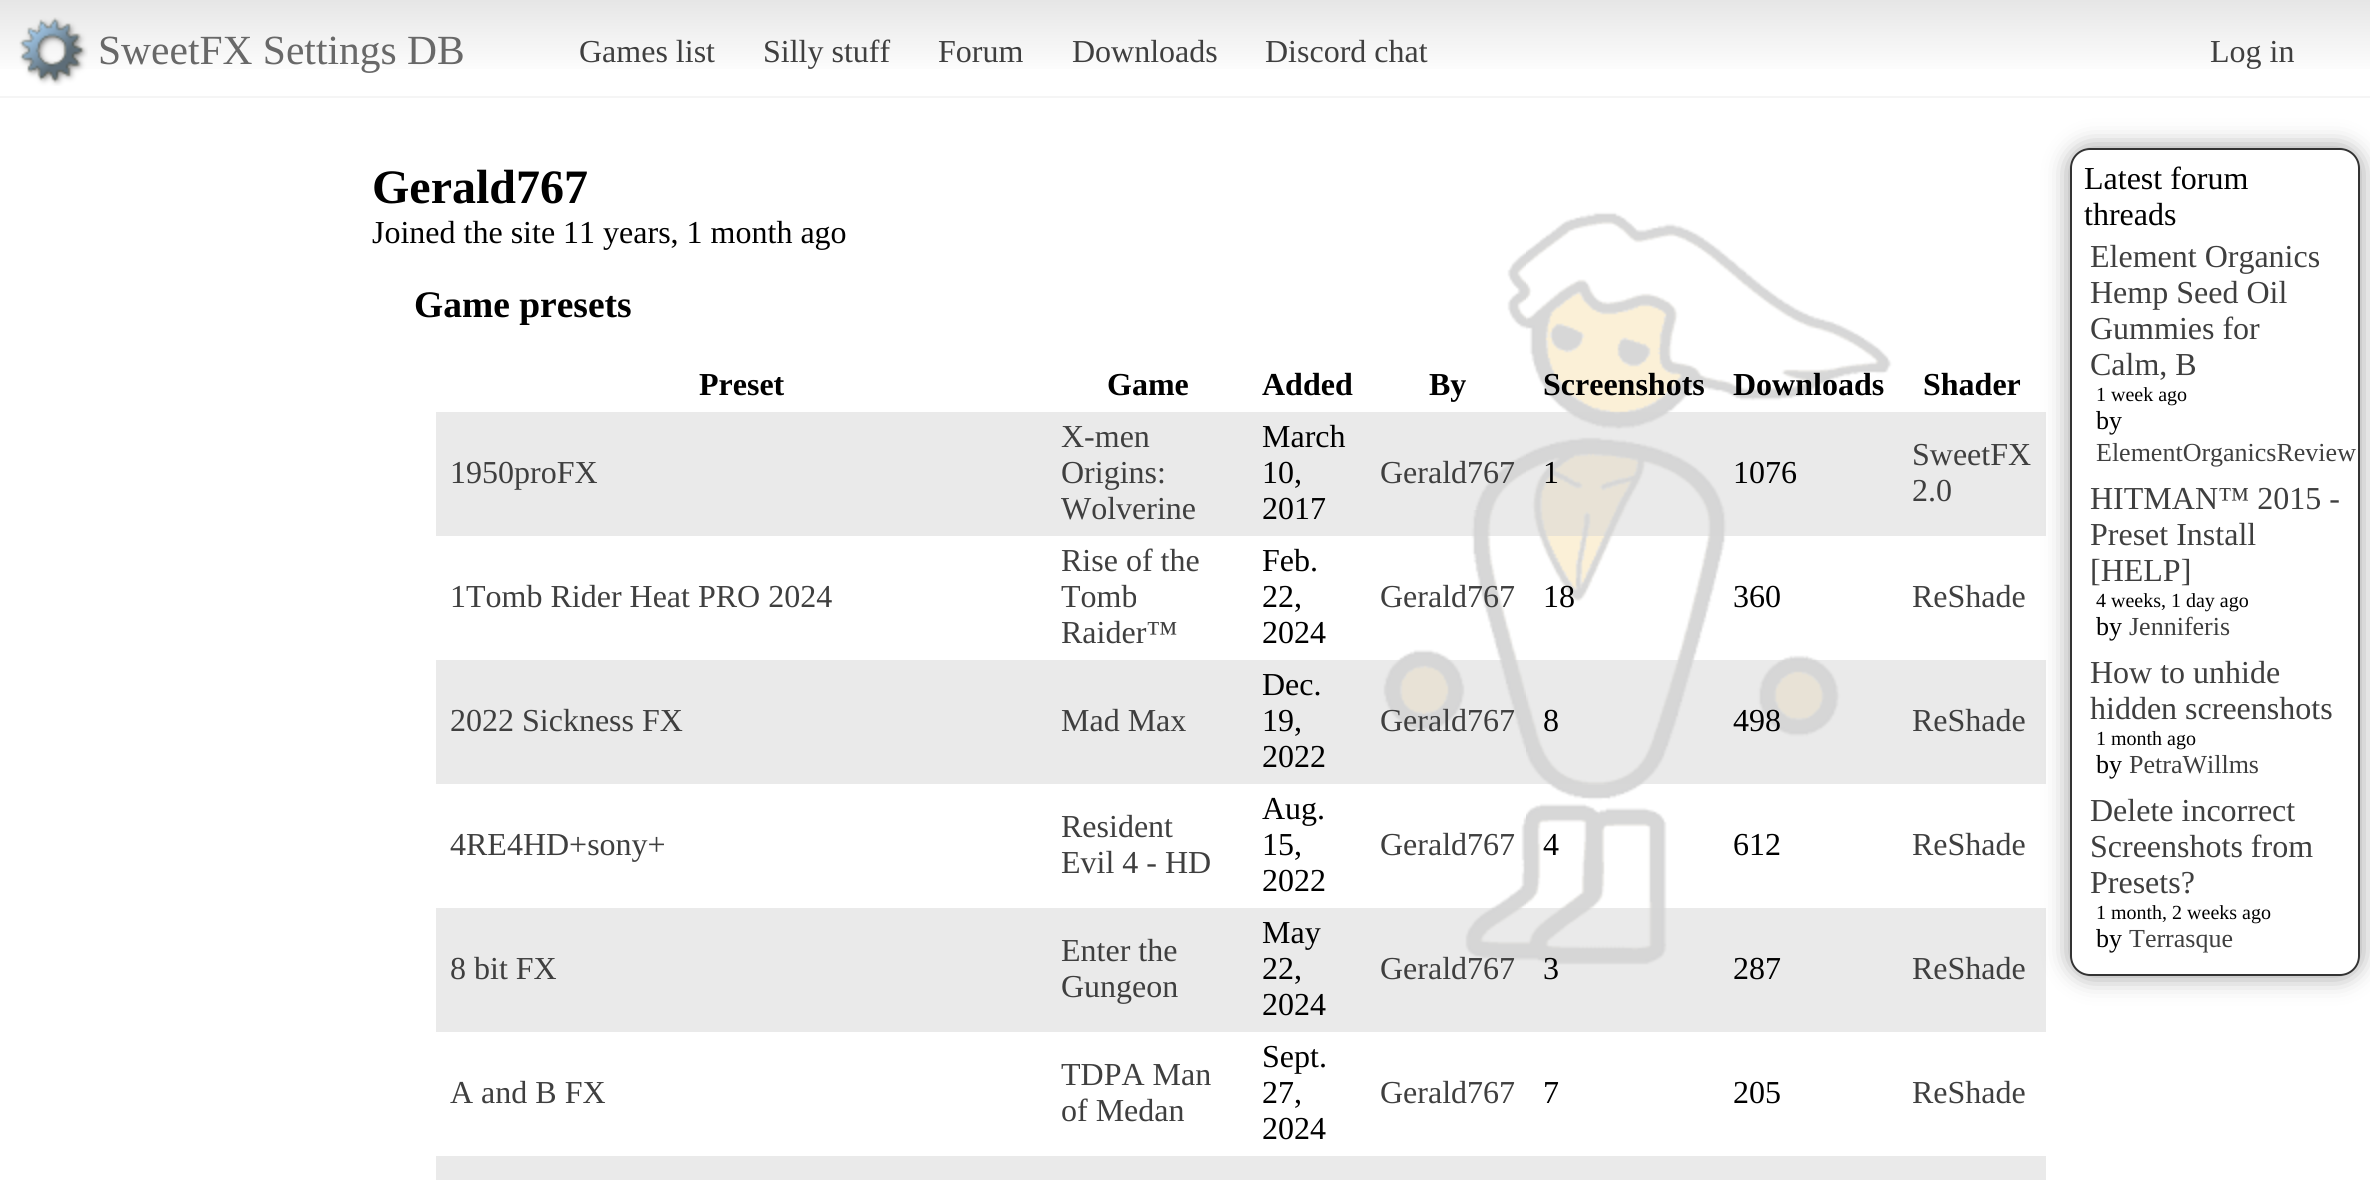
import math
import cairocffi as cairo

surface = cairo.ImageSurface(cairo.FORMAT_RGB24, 2370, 1180)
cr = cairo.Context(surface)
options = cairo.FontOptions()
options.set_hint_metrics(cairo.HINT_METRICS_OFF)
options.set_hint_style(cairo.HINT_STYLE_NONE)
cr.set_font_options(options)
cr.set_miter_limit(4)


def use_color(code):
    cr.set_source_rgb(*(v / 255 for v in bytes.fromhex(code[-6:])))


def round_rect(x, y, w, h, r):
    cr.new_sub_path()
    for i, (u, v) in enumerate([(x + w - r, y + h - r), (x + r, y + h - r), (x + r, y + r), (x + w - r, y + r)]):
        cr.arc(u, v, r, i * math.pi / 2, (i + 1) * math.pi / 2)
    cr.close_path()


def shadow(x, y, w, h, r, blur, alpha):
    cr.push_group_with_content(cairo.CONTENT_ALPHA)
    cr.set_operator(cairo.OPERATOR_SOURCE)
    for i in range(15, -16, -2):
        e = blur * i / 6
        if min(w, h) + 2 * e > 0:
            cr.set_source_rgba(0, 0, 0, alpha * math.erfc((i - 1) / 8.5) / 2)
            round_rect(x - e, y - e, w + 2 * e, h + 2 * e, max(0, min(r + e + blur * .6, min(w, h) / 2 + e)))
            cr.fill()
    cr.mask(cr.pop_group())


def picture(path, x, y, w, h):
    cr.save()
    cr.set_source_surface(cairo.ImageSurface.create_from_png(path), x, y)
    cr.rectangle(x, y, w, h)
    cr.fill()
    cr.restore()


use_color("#ffffff")
cr.paint()
picture("img1.png", 1383, 211, 510, 754)
gradient = cairo.LinearGradient(1185, 0, 1185, 96)
gradient.add_color_stop_rgba(0, 0.902, 0.902, 0.902, 1)
gradient.add_color_stop_rgba(0.8, 1, 1, 1, 1)
cr.set_source(gradient)
cr.rectangle(0, 0, 2370, 69)
cr.fill()
use_color("#f5f5f5")
cr.rectangle(0, 96, 2370, 2)
cr.fill()
picture("img2.png", 19, 17, 69, 69)
cr.select_font_face("Liberation Serif")
cr.set_font_size(41.5)
use_color("#686868")
cr.move_to(98, 64)
cr.show_text("SweetFX Settings DB")
cr.set_font_size(32)
use_color("#3f3f3f")
cr.move_to(579, 62)
cr.show_text("Games list")
cr.move_to(763, 62)
cr.show_text("Silly stuff")
cr.move_to(938, 62)
cr.show_text("Forum")
cr.move_to(1072, 62)
cr.show_text("Downloads")
cr.move_to(1265, 62)
cr.show_text("Discord chat")
cr.move_to(2210, 62)
cr.show_text("Log in")
cr.select_font_face("Liberation Serif", cairo.FONT_SLANT_NORMAL, cairo.FONT_WEIGHT_BOLD)
cr.set_font_size(48)
use_color("#000000")
cr.move_to(372, 203)
cr.show_text("Gerald767")
cr.select_font_face("Liberation Serif")
cr.set_font_size(32)
cr.move_to(372, 243)
cr.show_text("Joined the site 11 years, 1 month ago")
cr.select_font_face("Liberation Serif", cairo.FONT_SLANT_NORMAL, cairo.FONT_WEIGHT_BOLD)
cr.set_font_size(37.5)
cr.move_to(414, 317)
cr.show_text("Game presets")
cr.set_font_size(32)
cr.move_to(699, 395)
cr.show_text("Preset")
cr.move_to(1107, 395)
cr.show_text("Game")
cr.move_to(1262, 395)
cr.show_text("Added")
cr.move_to(1429, 395)
cr.show_text("By")
cr.move_to(1543, 395)
cr.show_text("Screenshots")
cr.move_to(1733, 395)
cr.show_text("Downloads")
cr.move_to(1923, 395)
cr.show_text("Shader")
cr.set_source_rgba(0.835, 0.835, 0.835, 0.49)
cr.rectangle(436, 412, 1610, 124)
cr.fill()
cr.select_font_face("Liberation Serif")
use_color("#3f3f3f")
cr.move_to(450, 483)
cr.show_text("1950proFX")
cr.move_to(1061, 447)
cr.show_text("X-men")
cr.move_to(1061, 483)
cr.show_text("Origins:")
cr.move_to(1061, 519)
cr.show_text("Wolverine")
use_color("#000000")
cr.move_to(1262, 447)
cr.show_text("March")
cr.move_to(1262, 483)
cr.show_text("10,")
cr.move_to(1262, 519)
cr.show_text("2017")
use_color("#3f3f3f")
cr.move_to(1380, 483)
cr.show_text("Gerald767")
use_color("#000000")
cr.move_to(1543, 483)
cr.show_text("1")
cr.move_to(1733, 483)
cr.show_text("1076")
use_color("#3f3f3f")
cr.move_to(1912, 465)
cr.show_text("SweetFX")
cr.move_to(1912, 501)
cr.show_text("2.0")
cr.move_to(450, 607)
cr.show_text("1Tomb Rider Heat PRO 2024")
cr.move_to(1061, 571)
cr.show_text("Rise of the")
cr.move_to(1061, 607)
cr.show_text("Tomb")
cr.move_to(1061, 643)
cr.show_text("Raider™")
use_color("#000000")
cr.move_to(1262, 571)
cr.show_text("Feb.")
cr.move_to(1262, 607)
cr.show_text("22,")
cr.move_to(1262, 643)
cr.show_text("2024")
use_color("#3f3f3f")
cr.move_to(1380, 607)
cr.show_text("Gerald767")
use_color("#000000")
cr.move_to(1543, 607)
cr.show_text("18")
cr.move_to(1733, 607)
cr.show_text("360")
use_color("#3f3f3f")
cr.move_to(1912, 607)
cr.show_text("ReShade")
cr.set_source_rgba(0.835, 0.835, 0.835, 0.49)
cr.rectangle(436, 660, 1610, 124)
cr.fill()
use_color("#3f3f3f")
cr.move_to(450, 731)
cr.show_text("2022 Sickness FX")
cr.move_to(1061, 731)
cr.show_text("Mad Max")
use_color("#000000")
cr.move_to(1262, 695)
cr.show_text("Dec.")
cr.move_to(1262, 731)
cr.show_text("19,")
cr.move_to(1262, 767)
cr.show_text("2022")
use_color("#3f3f3f")
cr.move_to(1380, 731)
cr.show_text("Gerald767")
use_color("#000000")
cr.move_to(1543, 731)
cr.show_text("8")
cr.move_to(1733, 731)
cr.show_text("498")
use_color("#3f3f3f")
cr.move_to(1912, 731)
cr.show_text("ReShade")
cr.move_to(450, 855)
cr.show_text("4RE4HD+sony+")
cr.move_to(1061, 837)
cr.show_text("Resident")
cr.move_to(1061, 873)
cr.show_text("Evil 4 - HD")
use_color("#000000")
cr.move_to(1262, 819)
cr.show_text("Aug.")
cr.move_to(1262, 855)
cr.show_text("15,")
cr.move_to(1262, 891)
cr.show_text("2022")
use_color("#3f3f3f")
cr.move_to(1380, 855)
cr.show_text("Gerald767")
use_color("#000000")
cr.move_to(1543, 855)
cr.show_text("4")
cr.move_to(1733, 855)
cr.show_text("612")
use_color("#3f3f3f")
cr.move_to(1912, 855)
cr.show_text("ReShade")
cr.set_source_rgba(0.835, 0.835, 0.835, 0.49)
cr.rectangle(436, 908, 1610, 124)
cr.fill()
use_color("#3f3f3f")
cr.move_to(450, 979)
cr.show_text("8 bit FX")
cr.move_to(1061, 961)
cr.show_text("Enter the")
cr.move_to(1061, 997)
cr.show_text("Gungeon")
use_color("#000000")
cr.move_to(1262, 943)
cr.show_text("May")
cr.move_to(1262, 979)
cr.show_text("22,")
cr.move_to(1262, 1015)
cr.show_text("2024")
use_color("#3f3f3f")
cr.move_to(1380, 979)
cr.show_text("Gerald767")
use_color("#000000")
cr.move_to(1543, 979)
cr.show_text("3")
cr.move_to(1733, 979)
cr.show_text("287")
use_color("#3f3f3f")
cr.move_to(1912, 979)
cr.show_text("ReShade")
cr.move_to(450, 1103)
cr.show_text("A and B FX")
cr.move_to(1061, 1085)
cr.show_text("TDPA Man")
cr.move_to(1061, 1121)
cr.show_text("of Medan")
use_color("#000000")
cr.move_to(1262, 1067)
cr.show_text("Sept.")
cr.move_to(1262, 1103)
cr.show_text("27,")
cr.move_to(1262, 1139)
cr.show_text("2024")
use_color("#3f3f3f")
cr.move_to(1380, 1103)
cr.show_text("Gerald767")
use_color("#000000")
cr.move_to(1543, 1103)
cr.show_text("7")
cr.move_to(1733, 1103)
cr.show_text("205")
use_color("#3f3f3f")
cr.move_to(1912, 1103)
cr.show_text("ReShade")
use_color("#eaeaea")
cr.rectangle(436, 1156, 1610, 24)
cr.fill()
cr.save()
cr.set_fill_rule(cairo.FILL_RULE_EVEN_ODD)
cr.new_path()
cr.move_to(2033, 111)
cr.line_to(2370, 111)
cr.line_to(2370, 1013)
cr.line_to(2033, 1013)
cr.close_path()
cr.move_to(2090, 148)
cr.line_to(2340, 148)
cr.curve_to(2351, 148, 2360, 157, 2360, 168)
cr.line_to(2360, 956)
cr.curve_to(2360, 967, 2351, 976, 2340, 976)
cr.line_to(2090, 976)
cr.curve_to(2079, 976, 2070, 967, 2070, 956)
cr.line_to(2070, 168)
cr.curve_to(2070, 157, 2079, 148, 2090, 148)
cr.close_path()
cr.clip()
use_color("#999999")
shadow(2070, 148, 290, 828, 20, 12, 1)
cr.restore()
round_rect(2071, 149, 288, 826, 19)
use_color("#333333")
cr.stroke()
use_color("#000000")
cr.move_to(2084, 189)
cr.show_text("Latest forum")
cr.move_to(2084, 225)
cr.show_text("threads")
use_color("#3f3f3f")
cr.move_to(2090, 267)
cr.show_text("Element Organics")
cr.move_to(2090, 303)
cr.show_text("Hemp Seed Oil")
cr.move_to(2090, 339)
cr.show_text("Gummies for")
cr.move_to(2090, 375)
cr.show_text("Calm, B")
cr.set_font_size(20)
use_color("#000000")
cr.move_to(2096, 401)
cr.show_text("1 week ago")
cr.set_font_size(26)
cr.move_to(2096, 429)
cr.show_text("by")
use_color("#3f3f3f")
cr.move_to(2096, 461)
cr.show_text("ElementOrganicsReview")
cr.set_font_size(32)
cr.move_to(2090, 509)
cr.show_text("HITMAN™ 2015 -")
cr.move_to(2090, 545)
cr.show_text("Preset Install")
cr.move_to(2090, 581)
cr.show_text("[HELP]")
cr.set_font_size(20)
use_color("#000000")
cr.move_to(2096, 607)
cr.show_text("4 weeks, 1 day ago")
cr.set_font_size(26)
cr.move_to(2096, 635)
cr.show_text("by")
use_color("#3f3f3f")
cr.move_to(2129, 635)
cr.show_text("Jenniferis")
cr.set_font_size(32)
cr.move_to(2090, 683)
cr.show_text("How to unhide")
cr.move_to(2090, 719)
cr.show_text("hidden screenshots")
cr.set_font_size(20)
use_color("#000000")
cr.move_to(2096, 745)
cr.show_text("1 month ago")
cr.set_font_size(26)
cr.move_to(2096, 773)
cr.show_text("by")
use_color("#3f3f3f")
cr.move_to(2129, 773)
cr.show_text("PetraWillms")
cr.set_font_size(32)
cr.move_to(2090, 821)
cr.show_text("Delete incorrect")
cr.move_to(2090, 857)
cr.show_text("Screenshots from")
cr.move_to(2090, 893)
cr.show_text("Presets?")
cr.set_font_size(20)
use_color("#000000")
cr.move_to(2096, 919)
cr.show_text("1 month, 2 weeks ago")
cr.set_font_size(26)
cr.move_to(2096, 947)
cr.show_text("by")
use_color("#3f3f3f")
cr.move_to(2129, 947)
cr.show_text("Terrasque")
surface.write_to_png("result.png")
